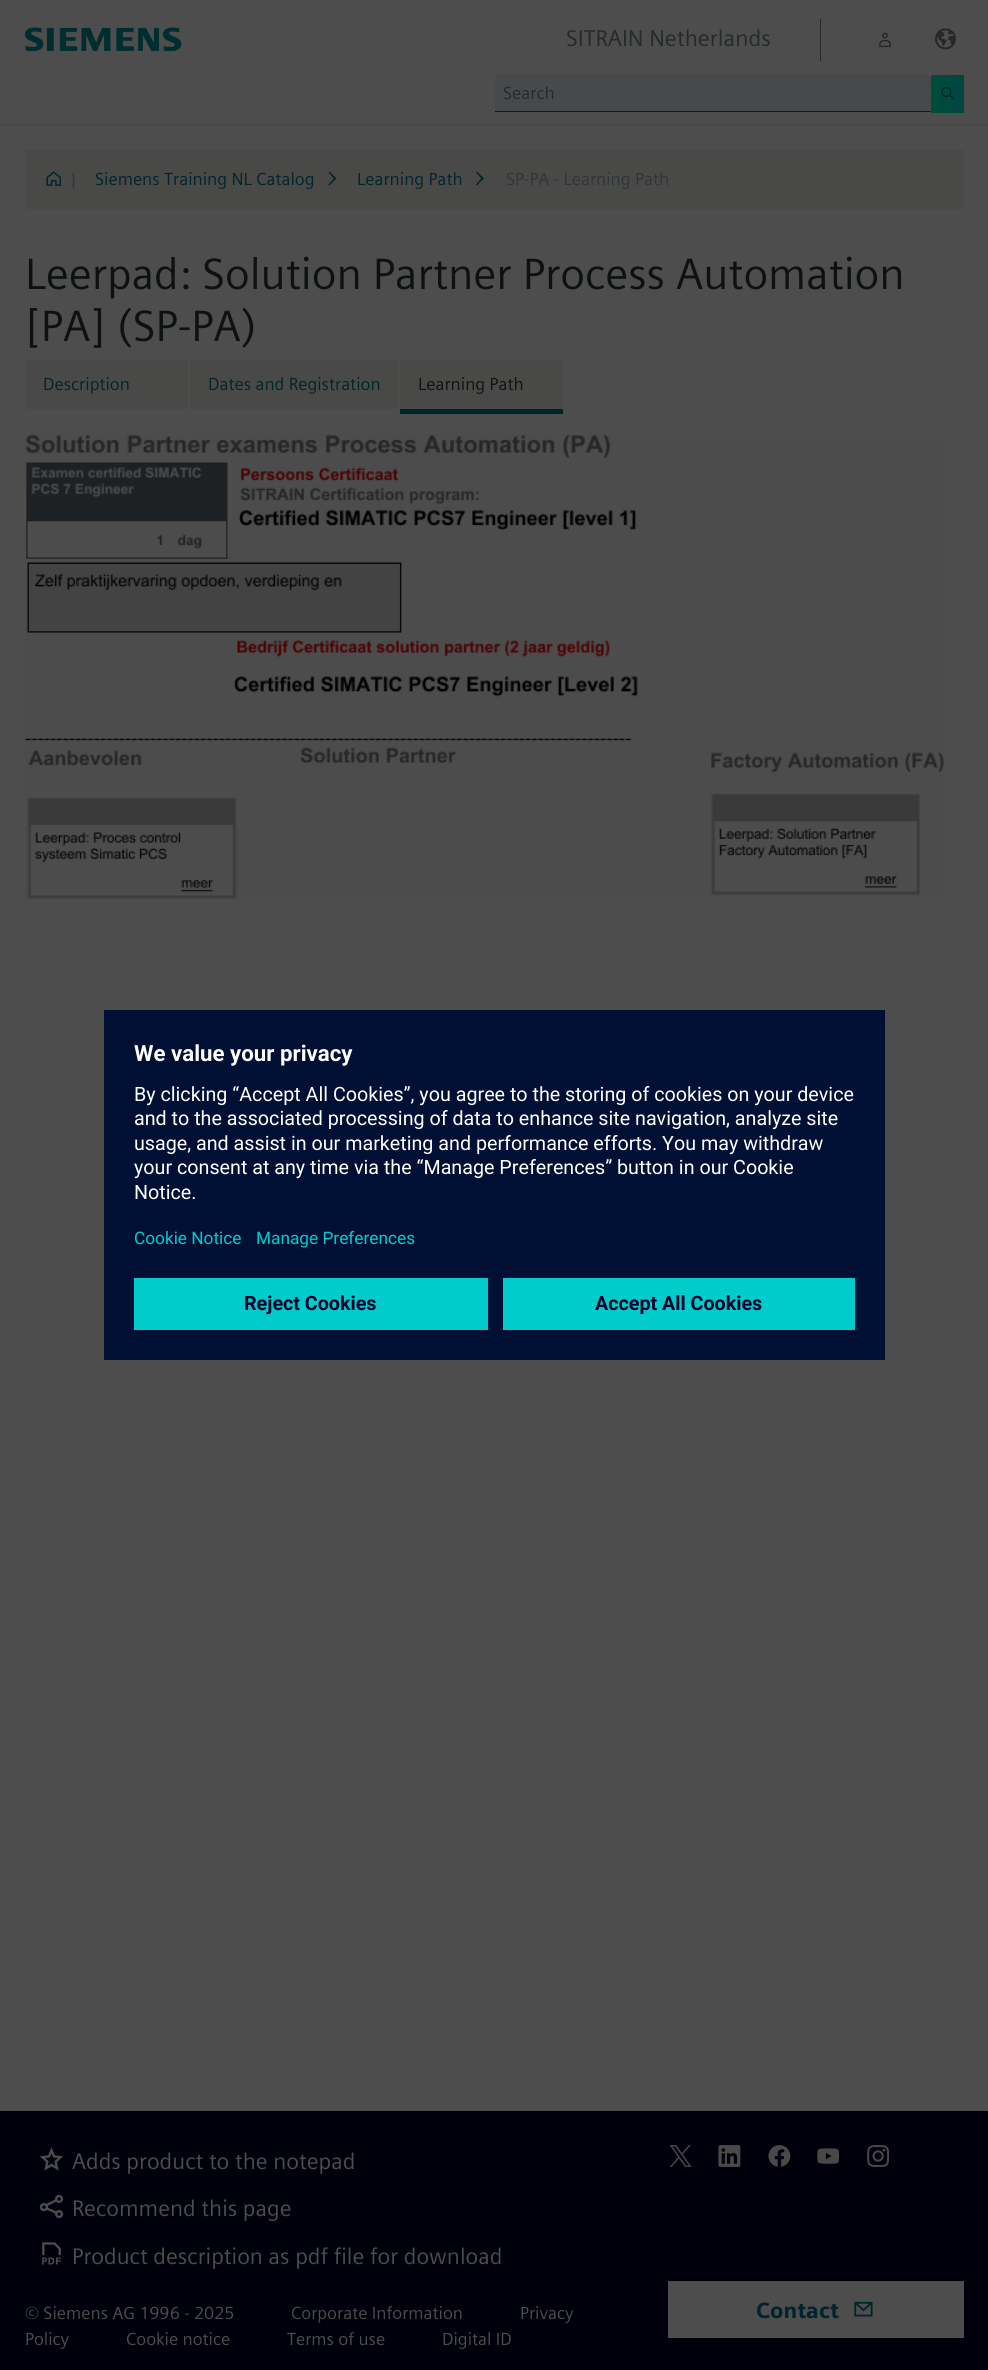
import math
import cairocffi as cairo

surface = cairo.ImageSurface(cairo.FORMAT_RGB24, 988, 2370)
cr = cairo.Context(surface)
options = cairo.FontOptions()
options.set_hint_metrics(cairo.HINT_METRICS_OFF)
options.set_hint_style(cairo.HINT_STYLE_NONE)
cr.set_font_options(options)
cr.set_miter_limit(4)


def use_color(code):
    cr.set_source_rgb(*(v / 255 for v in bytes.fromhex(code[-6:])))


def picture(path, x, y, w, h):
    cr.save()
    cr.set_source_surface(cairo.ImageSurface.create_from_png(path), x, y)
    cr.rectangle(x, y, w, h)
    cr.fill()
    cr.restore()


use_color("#4d4d4d")
cr.paint()
use_color("#494948")
cr.rectangle(0, 123, 988, 3)
cr.fill()
picture("img1.png", 25, 27, 157, 25)
use_color("#24292c")
cr.rectangle(820, 19, 1, 42)
cr.fill()
cr.select_font_face("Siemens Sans")
cr.set_font_size(22.75)
cr.move_to(566, 46)
cr.show_text("SITRAIN Netherlands")
picture("img2.png", 879, 32, 12, 16)
picture("img3.png", 935, 28, 21, 22)
use_color("#474a4a")
cr.rectangle(495, 75, 436, 36)
cr.fill()
use_color("#17171f")
cr.rectangle(495, 111, 438, 1)
cr.fill()
cr.set_font_size(17.5)
use_color("#24292c")
cr.move_to(503, 99)
cr.show_text("Search")
gradient = cairo.LinearGradient(931, 94, 964, 94)
gradient.add_color_stop_rgba(0, 0, 0.302, 0.22, 1)
gradient.add_color_stop_rgba(1, 0, 0.271, 0.259, 1)
cr.set_source(gradient)
cr.rectangle(931, 75, 33, 38)
cr.fill()
picture("img4.png", 941, 86, 13, 14)
use_color("#494948")
cr.rectangle(25, 150, 939, 59)
cr.fill()
picture("img5.png", 46, 171, 16, 15)
use_color("#2f3539")
cr.move_to(71, 185)
cr.show_text("|")
use_color("#00242c")
cr.move_to(95, 185)
cr.show_text("Siemens Training NL Catalog")
picture("img6.png", 328, 171, 9, 15)
cr.move_to(357, 185)
cr.show_text("Learning Path")
picture("img7.png", 476, 171, 8, 15)
use_color("#2f3539")
cr.move_to(506, 185)
cr.show_text("SP-PA - Learning Path")
cr.set_font_size(43.75)
use_color("#0e1112")
cr.move_to(25, 289)
cr.show_text("Leerpad: Solution Partner Process Automation")
cr.move_to(25, 341)
cr.show_text("[PA] (SP-PA)")
use_color("#494948")
cr.rectangle(25, 360, 163, 49)
cr.fill()
cr.set_font_size(17.5)
use_color("#00242c")
cr.move_to(43, 390)
cr.show_text("Description")
use_color("#494948")
cr.rectangle(190, 360, 208, 49)
cr.fill()
use_color("#00242c")
cr.move_to(208, 390)
cr.show_text("Dates and Registration")
use_color("#494948")
cr.rectangle(400, 360, 163, 49)
cr.fill()
use_color("#00242c")
cr.rectangle(400, 409, 163, 5)
cr.fill()
use_color("#0e1112")
cr.move_to(418, 390)
cr.show_text("Learning Path")
picture("img8.png", 25, 434, 919, 465)
use_color("#001034")
cr.rectangle(104, 1010, 781, 350)
cr.fill()
cr.select_font_face("Roboto", cairo.FONT_SLANT_NORMAL, cairo.FONT_WEIGHT_BOLD)
cr.set_font_size(22.25)
use_color("#ffffff")
cr.move_to(134, 1061)
cr.show_text("We value your privacy")
cr.select_font_face("Roboto")
cr.set_font_size(19.7)
cr.move_to(134, 1101)
cr.show_text("By clicking “Accept All Cookies”, you agree to the storing of cookies on your device")
cr.move_to(134, 1125)
cr.show_text("and to the associated processing of data to enhance site navigation, analyze site")
cr.move_to(134, 1150)
cr.show_text("usage, and assist in our marketing and performance efforts. You may withdraw")
cr.move_to(134, 1174)
cr.show_text("your consent at any time via the “Manage Preferences” button in our Cookie")
cr.move_to(134, 1199)
cr.show_text("Notice.")
cr.set_font_size(17.25)
use_color("#00cccc")
cr.move_to(134, 1244)
cr.show_text("Cookie Notice")
cr.move_to(256, 1244)
cr.show_text("Manage Preferences")
cr.rectangle(134, 1278, 354, 52)
cr.fill()
cr.select_font_face("Roboto", cairo.FONT_SLANT_NORMAL, cairo.FONT_WEIGHT_BOLD)
cr.set_font_size(19.7)
use_color("#000028")
cr.move_to(244, 1310)
cr.show_text("Reject Cookies")
use_color("#00cccc")
cr.rectangle(503, 1278, 352, 52)
cr.fill()
use_color("#000028")
cr.move_to(595, 1310)
cr.show_text("Accept All Cookies")
use_color("#00000c")
cr.rectangle(0, 2111, 988, 259)
cr.fill()
picture("img9.png", 40, 2147, 23, 24)
cr.select_font_face("Siemens Sans")
cr.set_font_size(22.5)
use_color("#4d4d4d")
cr.move_to(72, 2169)
cr.show_text("Adds product to the notepad")
picture("img10.png", 39, 2194, 25, 25)
cr.move_to(72, 2216)
cr.show_text("Recommend this page")
picture("img11.png", 42, 2242, 19, 23)
cr.move_to(72, 2264)
cr.show_text("Product description as pdf file for download")
picture("img12.png", 669, 2145, 23, 22)
picture("img13.png", 718, 2145, 23, 22)
picture("img14.png", 768, 2145, 23, 22)
picture("img15.png", 817, 2148, 23, 16)
picture("img16.png", 867, 2145, 23, 22)
cr.set_font_size(17.5)
cr.move_to(25, 2319)
cr.show_text("© Siemens AG 1996 - 2025")
cr.move_to(291, 2319)
cr.show_text("Corporate Information")
cr.move_to(520, 2319)
cr.show_text("Privacy")
cr.move_to(25, 2345)
cr.show_text("Policy")
cr.move_to(126, 2345)
cr.show_text("Cookie notice")
cr.move_to(287, 2345)
cr.show_text("Terms of use")
cr.move_to(442, 2345)
cr.show_text("Digital ID")
cr.rectangle(668, 2281, 296, 57)
cr.fill()
cr.select_font_face("Siemens Sans Black")
cr.set_font_size(22)
use_color("#00242c")
cr.move_to(756, 2318)
cr.show_text("Contact")
picture("img17.png", 854, 2301, 19, 16)
surface.write_to_png("result.png")
